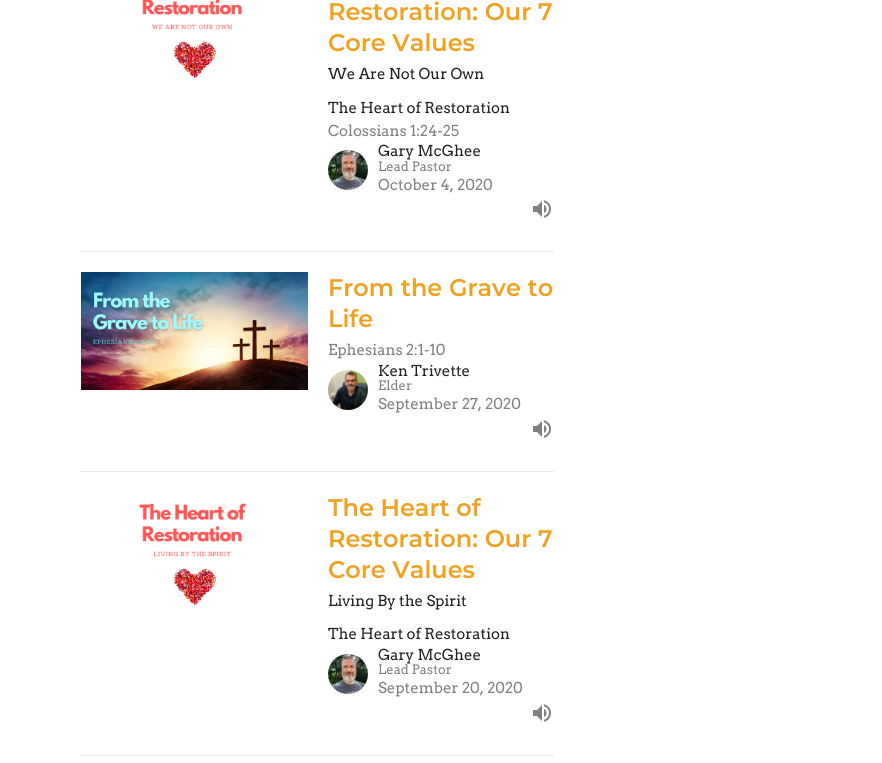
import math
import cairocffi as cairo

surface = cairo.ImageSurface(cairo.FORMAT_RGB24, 882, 763)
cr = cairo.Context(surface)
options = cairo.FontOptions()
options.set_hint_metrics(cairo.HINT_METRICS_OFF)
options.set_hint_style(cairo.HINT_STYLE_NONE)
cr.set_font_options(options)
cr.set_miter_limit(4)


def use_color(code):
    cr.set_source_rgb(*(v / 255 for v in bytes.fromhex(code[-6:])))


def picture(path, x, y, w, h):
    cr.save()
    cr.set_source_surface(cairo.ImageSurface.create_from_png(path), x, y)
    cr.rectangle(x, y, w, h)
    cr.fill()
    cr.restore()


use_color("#ffffff")
cr.paint()
use_color("#e6e6e6")
cr.rectangle(81, 251, 473, 1)
cr.fill()
picture("img1.png", 142, 0, 100, 79)
cr.select_font_face("Montserrat SemiBold")
cr.set_font_size(24)
use_color("#f0a120")
cr.move_to(328, 20)
cr.show_text("Restoration: Our 7")
cr.move_to(328, 51)
cr.show_text("Core Values")
cr.select_font_face("Arvo")
cr.set_font_size(15)
use_color("#222222")
cr.move_to(328, 79)
cr.show_text("We Are Not Our Own")
cr.move_to(328, 113)
cr.show_text("The Heart of Restoration")
use_color("#808080")
cr.move_to(328, 136)
cr.show_text("Colossians 1:24-25")
picture("img2.png", 328, 150, 40, 40)
use_color("#222222")
cr.move_to(378, 156)
cr.show_text("Gary McGhee")
cr.set_font_size(13)
use_color("#808080")
cr.move_to(378, 171)
cr.show_text("Lead Pastor")
cr.set_font_size(15)
cr.move_to(378, 190)
cr.show_text("October 4, 2020")
picture("img3.png", 533, 200, 18, 18)
use_color("#e6e6e6")
cr.rectangle(81, 471, 473, 1)
cr.fill()
picture("img4.png", 81, 272, 227, 118)
cr.select_font_face("Montserrat SemiBold")
cr.set_font_size(24)
use_color("#f0a120")
cr.move_to(328, 296)
cr.show_text("From the Grave to")
cr.move_to(328, 327)
cr.show_text("Life")
cr.select_font_face("Arvo")
cr.set_font_size(15)
use_color("#808080")
cr.move_to(328, 355)
cr.show_text("Ephesians 2:1-10")
picture("img5.png", 328, 370, 40, 40)
use_color("#222222")
cr.move_to(378, 376)
cr.show_text("Ken Trivette")
cr.set_font_size(13)
use_color("#808080")
cr.move_to(378, 390)
cr.show_text("Elder")
cr.set_font_size(15)
cr.move_to(378, 409)
cr.show_text("September 27, 2020")
picture("img3.png", 533, 420, 18, 18)
use_color("#e6e6e6")
cr.rectangle(81, 755, 473, 1)
cr.fill()
picture("img6.png", 139, 503, 108, 103)
cr.select_font_face("Montserrat SemiBold")
cr.set_font_size(24)
use_color("#f0a120")
cr.move_to(328, 516)
cr.show_text("The Heart of")
cr.move_to(328, 547)
cr.show_text("Restoration: Our 7")
cr.move_to(328, 578)
cr.show_text("Core Values")
cr.select_font_face("Arvo")
cr.set_font_size(15)
use_color("#222222")
cr.move_to(328, 606)
cr.show_text("Living By the Spirit")
cr.move_to(328, 639)
cr.show_text("The Heart of Restoration")
picture("img2.png", 328, 654, 40, 40)
cr.move_to(378, 660)
cr.show_text("Gary McGhee")
cr.set_font_size(13)
use_color("#808080")
cr.move_to(378, 674)
cr.show_text("Lead Pastor")
cr.set_font_size(15)
cr.move_to(378, 693)
cr.show_text("September 20, 2020")
picture("img3.png", 533, 704, 18, 18)
surface.write_to_png("result.png")
